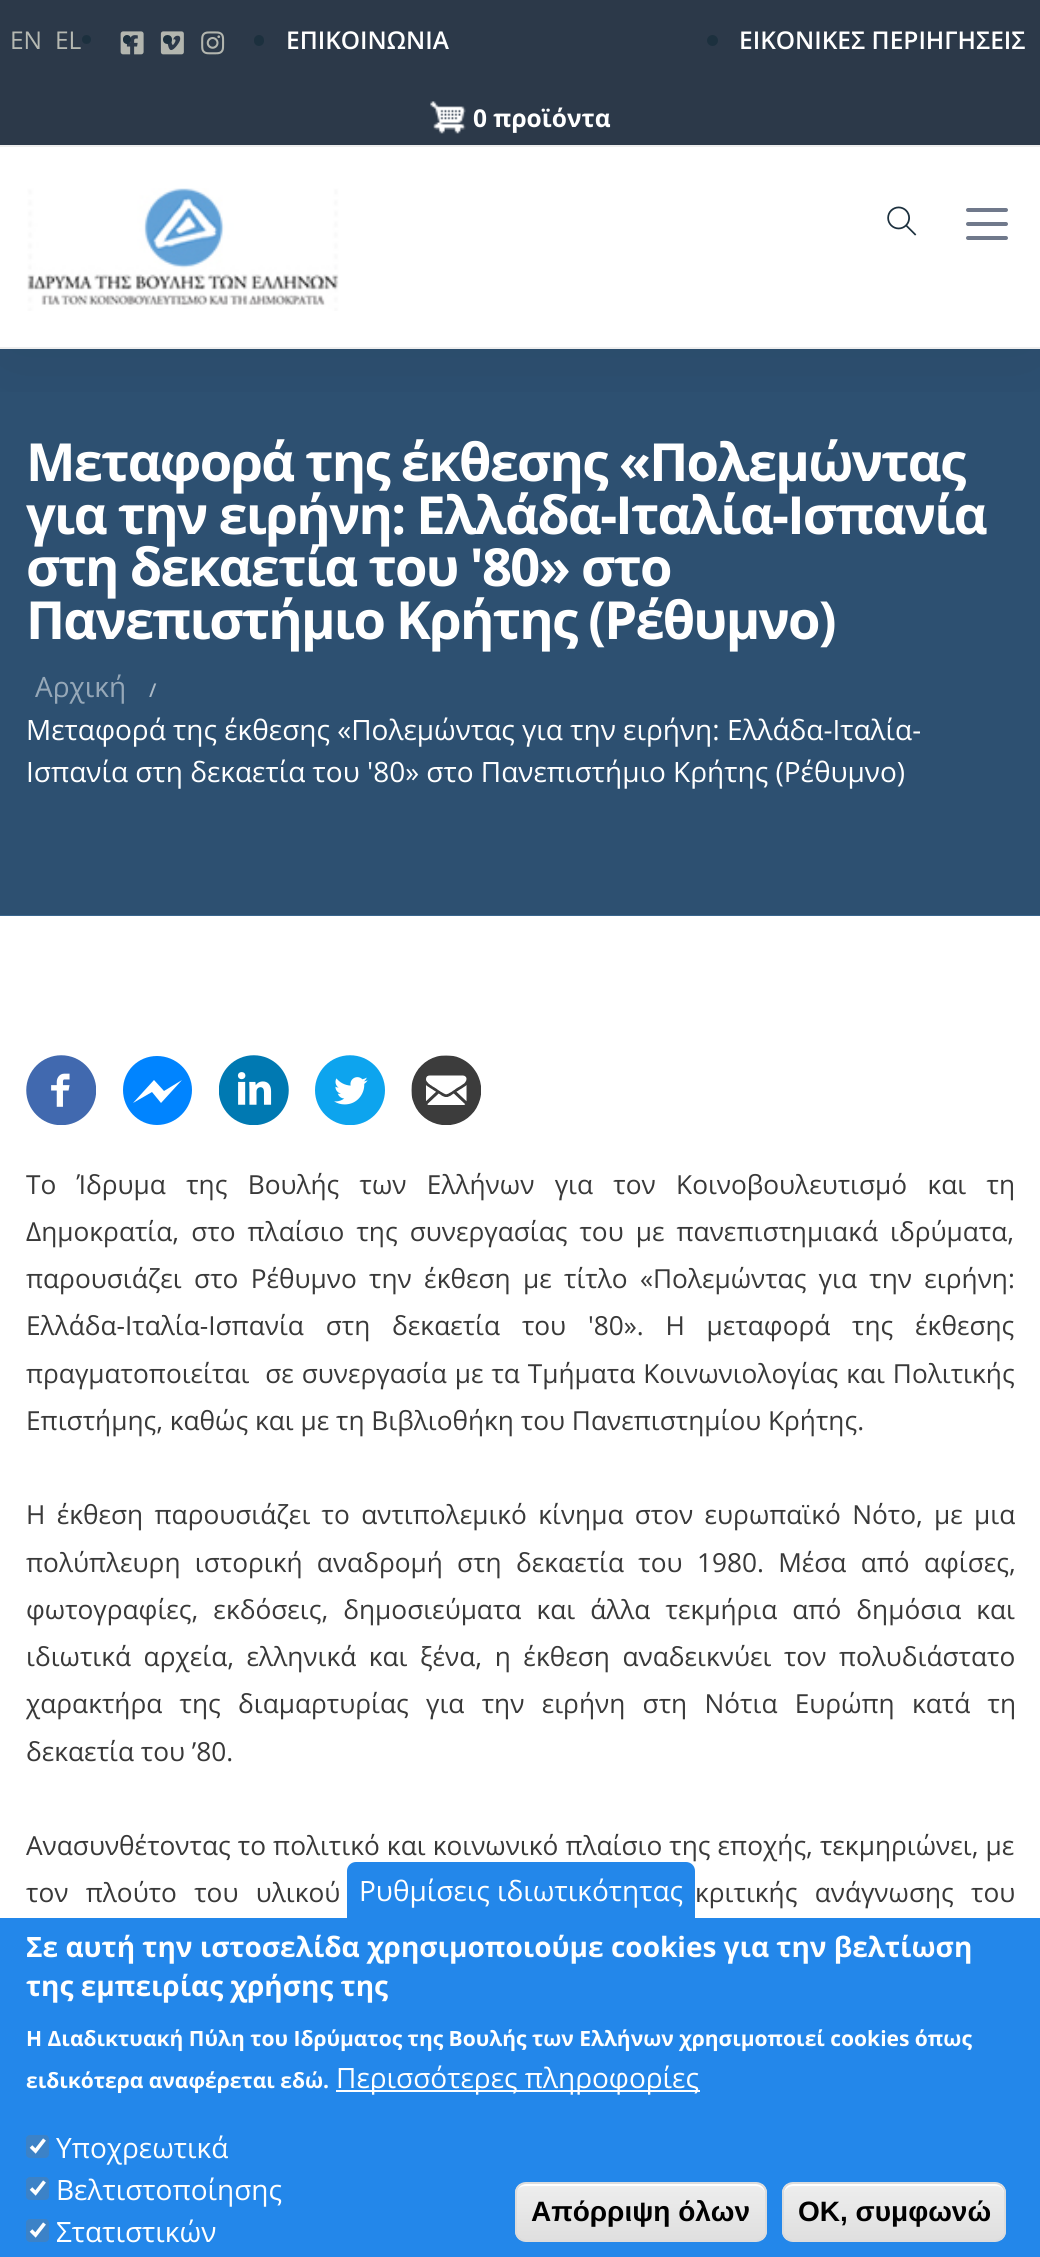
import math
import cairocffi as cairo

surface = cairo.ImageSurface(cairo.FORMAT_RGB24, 1040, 2257)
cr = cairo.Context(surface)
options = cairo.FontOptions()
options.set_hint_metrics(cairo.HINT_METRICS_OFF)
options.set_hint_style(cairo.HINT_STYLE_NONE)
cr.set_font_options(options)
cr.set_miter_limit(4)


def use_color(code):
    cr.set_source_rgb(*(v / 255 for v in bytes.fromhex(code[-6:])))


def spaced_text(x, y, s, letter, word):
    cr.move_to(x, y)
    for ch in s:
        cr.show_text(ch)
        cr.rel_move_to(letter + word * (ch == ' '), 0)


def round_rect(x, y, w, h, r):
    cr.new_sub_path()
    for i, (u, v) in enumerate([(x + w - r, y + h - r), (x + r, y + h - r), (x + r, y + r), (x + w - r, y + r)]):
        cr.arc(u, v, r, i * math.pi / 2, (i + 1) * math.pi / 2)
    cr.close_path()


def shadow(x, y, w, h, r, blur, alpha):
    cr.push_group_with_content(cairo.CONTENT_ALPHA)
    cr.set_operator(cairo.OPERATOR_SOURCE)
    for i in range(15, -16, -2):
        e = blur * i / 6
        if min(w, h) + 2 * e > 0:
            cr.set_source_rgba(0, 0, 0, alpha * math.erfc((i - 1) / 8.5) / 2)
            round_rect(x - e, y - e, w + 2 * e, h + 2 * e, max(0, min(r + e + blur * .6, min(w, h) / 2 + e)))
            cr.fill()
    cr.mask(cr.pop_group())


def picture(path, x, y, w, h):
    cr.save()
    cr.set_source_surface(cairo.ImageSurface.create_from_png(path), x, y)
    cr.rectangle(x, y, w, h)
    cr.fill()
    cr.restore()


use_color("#ffffff")
cr.paint()
use_color("#2d5071")
cr.rectangle(0, 349, 1040, 566)
cr.fill()
cr.save()
cr.rectangle(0, 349, 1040, 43)
cr.clip()
use_color("#000000")
shadow(0, 147, 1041, 201, 0, 57, 0.09)
cr.restore()
use_color("#eeeeee")
cr.rectangle(0, 347, 1040, 2)
cr.fill()
picture("img1.png", 27, 188, 312, 123)
use_color("#70798b")
round_rect(966, 236, 42, 4, 2)
cr.fill()
round_rect(966, 222, 42, 4, 2)
cr.fill()
round_rect(966, 208, 42, 4, 2)
cr.fill()
picture("img2.png", 887, 206, 30, 30)
use_color("#2c3949")
cr.rectangle(0, 0, 1040, 145)
cr.fill()
use_color("#eeeeee")
cr.rectangle(0, 145, 1040, 2)
cr.fill()
cr.select_font_face("Open Sans")
cr.set_font_size(24.5)
use_color("#b6b9b2")
cr.move_to(10, 49)
cr.show_text("EN")
cr.move_to(55, 49)
cr.show_text("EL")
use_color("#1c303e")
cr.new_path()
cr.arc(86.5, 39.5, 4.5, 0, 2 * math.pi)
cr.fill()
picture("img3.png", 120, 31, 24, 24)
round_rect(123, 35, 8, 9, 4)
cr.fill()
picture("img4.png", 160, 31, 24, 24)
cr.arc(167.5, 39.5, 4.5, 0, 2 * math.pi)
cr.fill()
picture("img5.png", 201, 31, 24, 24)
round_rect(254, 35, 10, 11, 5)
cr.fill()
cr.select_font_face("Open Sans SemiBold")
use_color("#ffffff")
cr.move_to(286, 49)
cr.show_text("ΕΠΙΚΟΙΝΩΝΙΑ")
use_color("#1c303e")
cr.new_path()
cr.arc(712.5, 40.5, 5.5, 0, 2 * math.pi)
cr.fill()
use_color("#ffffff")
cr.move_to(739, 49)
cr.show_text("ΕΙΚΟΝΙΚΕΣ ΠΕΡΙΗΓΗΣΕΙΣ")
picture("img6.png", 430, 101, 36, 33)
cr.select_font_face("Open Sans", cairo.FONT_SLANT_NORMAL, cairo.FONT_WEIGHT_BOLD)
cr.move_to(473, 127)
cr.show_text("0 προϊόντα")
cr.set_font_size(52.5)
spaced_text(26, 481, "Μεταφορά της έκθεσης «Πολεμώντας", -1.75, 0)
spaced_text(26, 534, "για την ειρήνη: Ελλάδα-Ιταλία-Ισπανία", -1.75, 0)
spaced_text(26, 586, "στη δεκαετία του '80» στο", -1.75, 0)
spaced_text(26, 639, "Πανεπιστήμιο Κρήτης (Ρέθυμνο)", -1.75, 0)
cr.select_font_face("Open Sans")
cr.set_font_size(28)
use_color("#96a8b8")
cr.move_to(35, 697)
cr.show_text("Αρχική")
cr.select_font_face("Open Sans SemiBold")
cr.set_font_size(19)
use_color("#abb9c6")
cr.move_to(149, 697)
cr.show_text("/")
cr.select_font_face("Open Sans")
cr.set_font_size(28)
use_color("#ffffff")
cr.move_to(26, 740)
cr.show_text("Μεταφορά της έκθεσης «Πολεμώντας για την ειρήνη: Ελλάδα-Ιταλία-")
cr.move_to(26, 782)
cr.show_text("Ισπανία στη δεκαετία του '80» στο Πανεπιστήμιο Κρήτης (Ρέθυμνο)")
use_color("#39658c")
cr.rectangle(0, 915, 1040, 1)
cr.fill()
picture("img7.png", 26, 1055, 70, 70)
use_color("#0084ff")
cr.set_fill_rule(cairo.FILL_RULE_EVEN_ODD)
cr.new_path()
cr.move_to(157, 1056)
cr.curve_to(138, 1056, 123, 1071, 123, 1090)
cr.curve_to(123, 1109, 138, 1125, 157, 1125)
cr.curve_to(176, 1125, 192, 1109, 192, 1090)
cr.curve_to(192, 1071, 176, 1056, 157, 1056)
cr.close_path()
cr.fill()
use_color("#ffffff")
cr.new_path()
cr.move_to(161, 1103)
cr.line_to(152, 1092)
cr.line_to(133, 1103)
cr.line_to(154, 1080)
cr.line_to(164, 1091)
cr.line_to(182, 1080)
cr.close_path()
cr.fill()
picture("img8.png", 219, 1055, 70, 70)
picture("img9.png", 315, 1055, 70, 70)
picture("img10.png", 411, 1055, 70, 70)
cr.set_font_size(26.25)
use_color("#393939")
spaced_text(26, 1194, "Το Ίδρυμα της Βουλής των Ελλήνων για τον Κοινοβουλευτισμό και τη", 0, 13.5)
spaced_text(26, 1241, "Δημοκρατία, στο πλαίσιο της συνεργασίας του με πανεπιστημιακά ιδρύματα,", 0, 5.25)
spaced_text(26, 1288, "παρουσιάζει στο Ρέθυμνο την έκθεση με τίτλο «Πολεμώντας για την ειρήνη:", 0, 5.5)
spaced_text(26, 1335, "Ελλάδα-Ιταλία-Ισπανία στη δεκαετία του '80». Η μεταφορά της έκθεσης", 0, 15)
spaced_text(26, 1383, "πραγματοποιείται  σε συνεργασία με τα Τμήματα Κοινωνιολογίας και Πολιτικής", 0, 1.1)
cr.move_to(26, 1430)
cr.show_text("Επιστήμης, καθώς και με τη Βιβλιοθήκη του Πανεπιστημίου Κρήτης.")
spaced_text(26, 1524, "Η έκθεση παρουσιάζει το αντιπολεμικό κίνημα στον ευρωπαϊκό Νότο, με μια", 0, 4.5)
spaced_text(26, 1572, "πολύπλευρη ιστορική αναδρομή στη δεκαετία του 1980. Μέσα από αφίσες,", 0, 7.5)
spaced_text(26, 1619, "φωτογραφίες, εκδόσεις, δημοσιεύματα και άλλα τεκμήρια από δημόσια και", 0, 8.25)
spaced_text(26, 1666, "ιδιωτικά αρχεία, ελληνικά και ξένα, η έκθεση αναδεικνύει τον πολυδιάστατο", 0, 5.75)
spaced_text(26, 1713, "χαρακτήρα της διαμαρτυρίας για την ειρήνη στη Νότια Ευρώπη κατά τη", 0, 10.5)
cr.move_to(26, 1761)
cr.show_text("δεκαετία του ’80.")
spaced_text(26, 1855, "Ανασυνθέτοντας το πολιτικό και κοινωνικό πλαίσιο της εποχής, τεκμηριώνει, με", 0, 0.25)
spaced_text(26, 1902, "τον πλούτο του υλικού", 0, 10.5)
spaced_text(695, 1902, "κριτικής ανάγνωσης του", 0, 10.5)
use_color("#2387ea")
cr.rectangle(0, 1918, 1040, 339)
cr.fill()
cr.new_path()
cr.move_to(356, 1862)
cr.line_to(686, 1862)
cr.curve_to(691, 1862, 695, 1866, 695, 1871)
cr.line_to(695, 1918)
cr.line_to(347, 1918)
cr.line_to(347, 1871)
cr.curve_to(347, 1866, 351, 1862, 356, 1862)
cr.close_path()
cr.fill()
cr.set_font_size(28)
use_color("#ffffff")
cr.move_to(359, 1901)
cr.show_text("Ρυθμίσεις ιδιωτικότητας")
cr.select_font_face("Open Sans", cairo.FONT_SLANT_NORMAL, cairo.FONT_WEIGHT_BOLD)
cr.move_to(26, 1957)
cr.show_text("Σε αυτή την ιστοσελίδα χρησιμοποιούμε cookies για την βελτίωση")
cr.move_to(26, 1996)
cr.show_text("της εμπειρίας χρήσης της")
cr.set_font_size(21)
cr.move_to(26, 2046)
cr.show_text("Η Διαδικτυακή Πύλη του Ιδρύματος της Βουλής των Ελλήνων χρησιμοποιεί cookies όπως")
cr.move_to(26, 2088)
cr.show_text("ειδικότερα αναφέρεται εδώ.")
cr.rectangle(336, 2090, 364, 2)
cr.fill()
cr.select_font_face("Open Sans")
cr.set_font_size(28)
cr.move_to(336, 2088)
cr.show_text("Περισσότερες πληροφορίες")
use_color("#3c82c7")
round_rect(26, 2135, 23, 23, 4)
cr.fill()
cr.new_path()
cr.move_to(31, 2146.5)
cr.line_to(35.5, 2151)
cr.line_to(44.5, 2139.5)
use_color("#ffffff")
cr.set_line_width(3.6)
cr.stroke()
cr.move_to(56, 2158)
cr.show_text("Υποχρεωτικά")
use_color("#3c82c7")
round_rect(26, 2177, 23, 23, 4)
cr.fill()
cr.new_path()
cr.move_to(31, 2188.5)
cr.line_to(35.5, 2193)
cr.line_to(44.5, 2181.5)
use_color("#ffffff")
cr.stroke()
cr.move_to(56, 2200)
cr.show_text("Βελτιστοποίησης")
use_color("#3c82c7")
round_rect(26, 2219, 23, 23, 4)
cr.fill()
cr.new_path()
cr.move_to(31, 2230.5)
cr.line_to(35.5, 2235)
cr.line_to(44.5, 2223.5)
use_color("#ffffff")
cr.stroke()
cr.move_to(56, 2242)
cr.show_text("Στατιστικών")
cr.save()
cr.set_fill_rule(cairo.FILL_RULE_WINDING)
round_rect(515, 2182, 252, 60, 11)
cr.clip()
gradient = cairo.LinearGradient(641, 2184, 641, 2240)
gradient.add_color_stop_rgba(0.05, 0.929, 0.929, 0.929, 1)
gradient.add_color_stop_rgba(1, 0.875, 0.875, 0.875, 1)
cr.set_source(gradient)
cr.rectangle(515, 2184, 252, 56)
cr.fill()
cr.restore()
cr.set_fill_rule(cairo.FILL_RULE_WINDING)
cr.new_path()
cr.move_to(525, 2186)
cr.line_to(756, 2186)
cr.curve_to(761, 2186, 765, 2190, 765, 2194)
cr.line_to(765, 2193)
cr.curve_to(765, 2188, 761, 2184, 756, 2184)
cr.line_to(525, 2184)
cr.curve_to(520, 2184, 516, 2188, 516, 2193)
cr.line_to(516, 2194)
cr.curve_to(516, 2190, 520, 2186, 525, 2186)
cr.close_path()
cr.fill()
round_rect(516, 2183, 250, 58, 10)
use_color("#dcdcdc")
cr.set_line_width(2)
cr.stroke()
cr.select_font_face("Liberation Sans", cairo.FONT_SLANT_NORMAL, cairo.FONT_WEIGHT_BOLD)
use_color("#000000")
cr.move_to(531, 2221)
cr.show_text("Απόρριψη όλων")
cr.save()
round_rect(782, 2182, 224, 60, 11)
cr.clip()
gradient = cairo.LinearGradient(894, 2184, 894, 2240)
gradient.add_color_stop_rgba(0.05, 0.929, 0.929, 0.929, 1)
gradient.add_color_stop_rgba(1, 0.875, 0.875, 0.875, 1)
cr.set_source(gradient)
cr.rectangle(782, 2184, 224, 56)
cr.fill()
cr.restore()
use_color("#ffffff")
cr.new_path()
cr.move_to(793, 2186)
cr.line_to(996, 2186)
cr.curve_to(1007, 2186, 1004, 2200, 1004, 2207)
cr.line_to(1004, 2236)
cr.curve_to(1005, 2234, 1005, 2233, 1005, 2231)
cr.line_to(1005, 2193)
cr.curve_to(1005, 2188, 1001, 2184, 996, 2184)
cr.line_to(793, 2184)
cr.curve_to(788, 2184, 784, 2188, 784, 2193)
cr.line_to(784, 2194)
cr.curve_to(784, 2190, 788, 2186, 793, 2186)
cr.close_path()
cr.fill()
round_rect(783, 2183, 222, 58, 10)
use_color("#dcdcdc")
cr.stroke()
use_color("#000000")
cr.move_to(798, 2221)
cr.show_text("OK, συμφωνώ")
surface.write_to_png("result.png")
